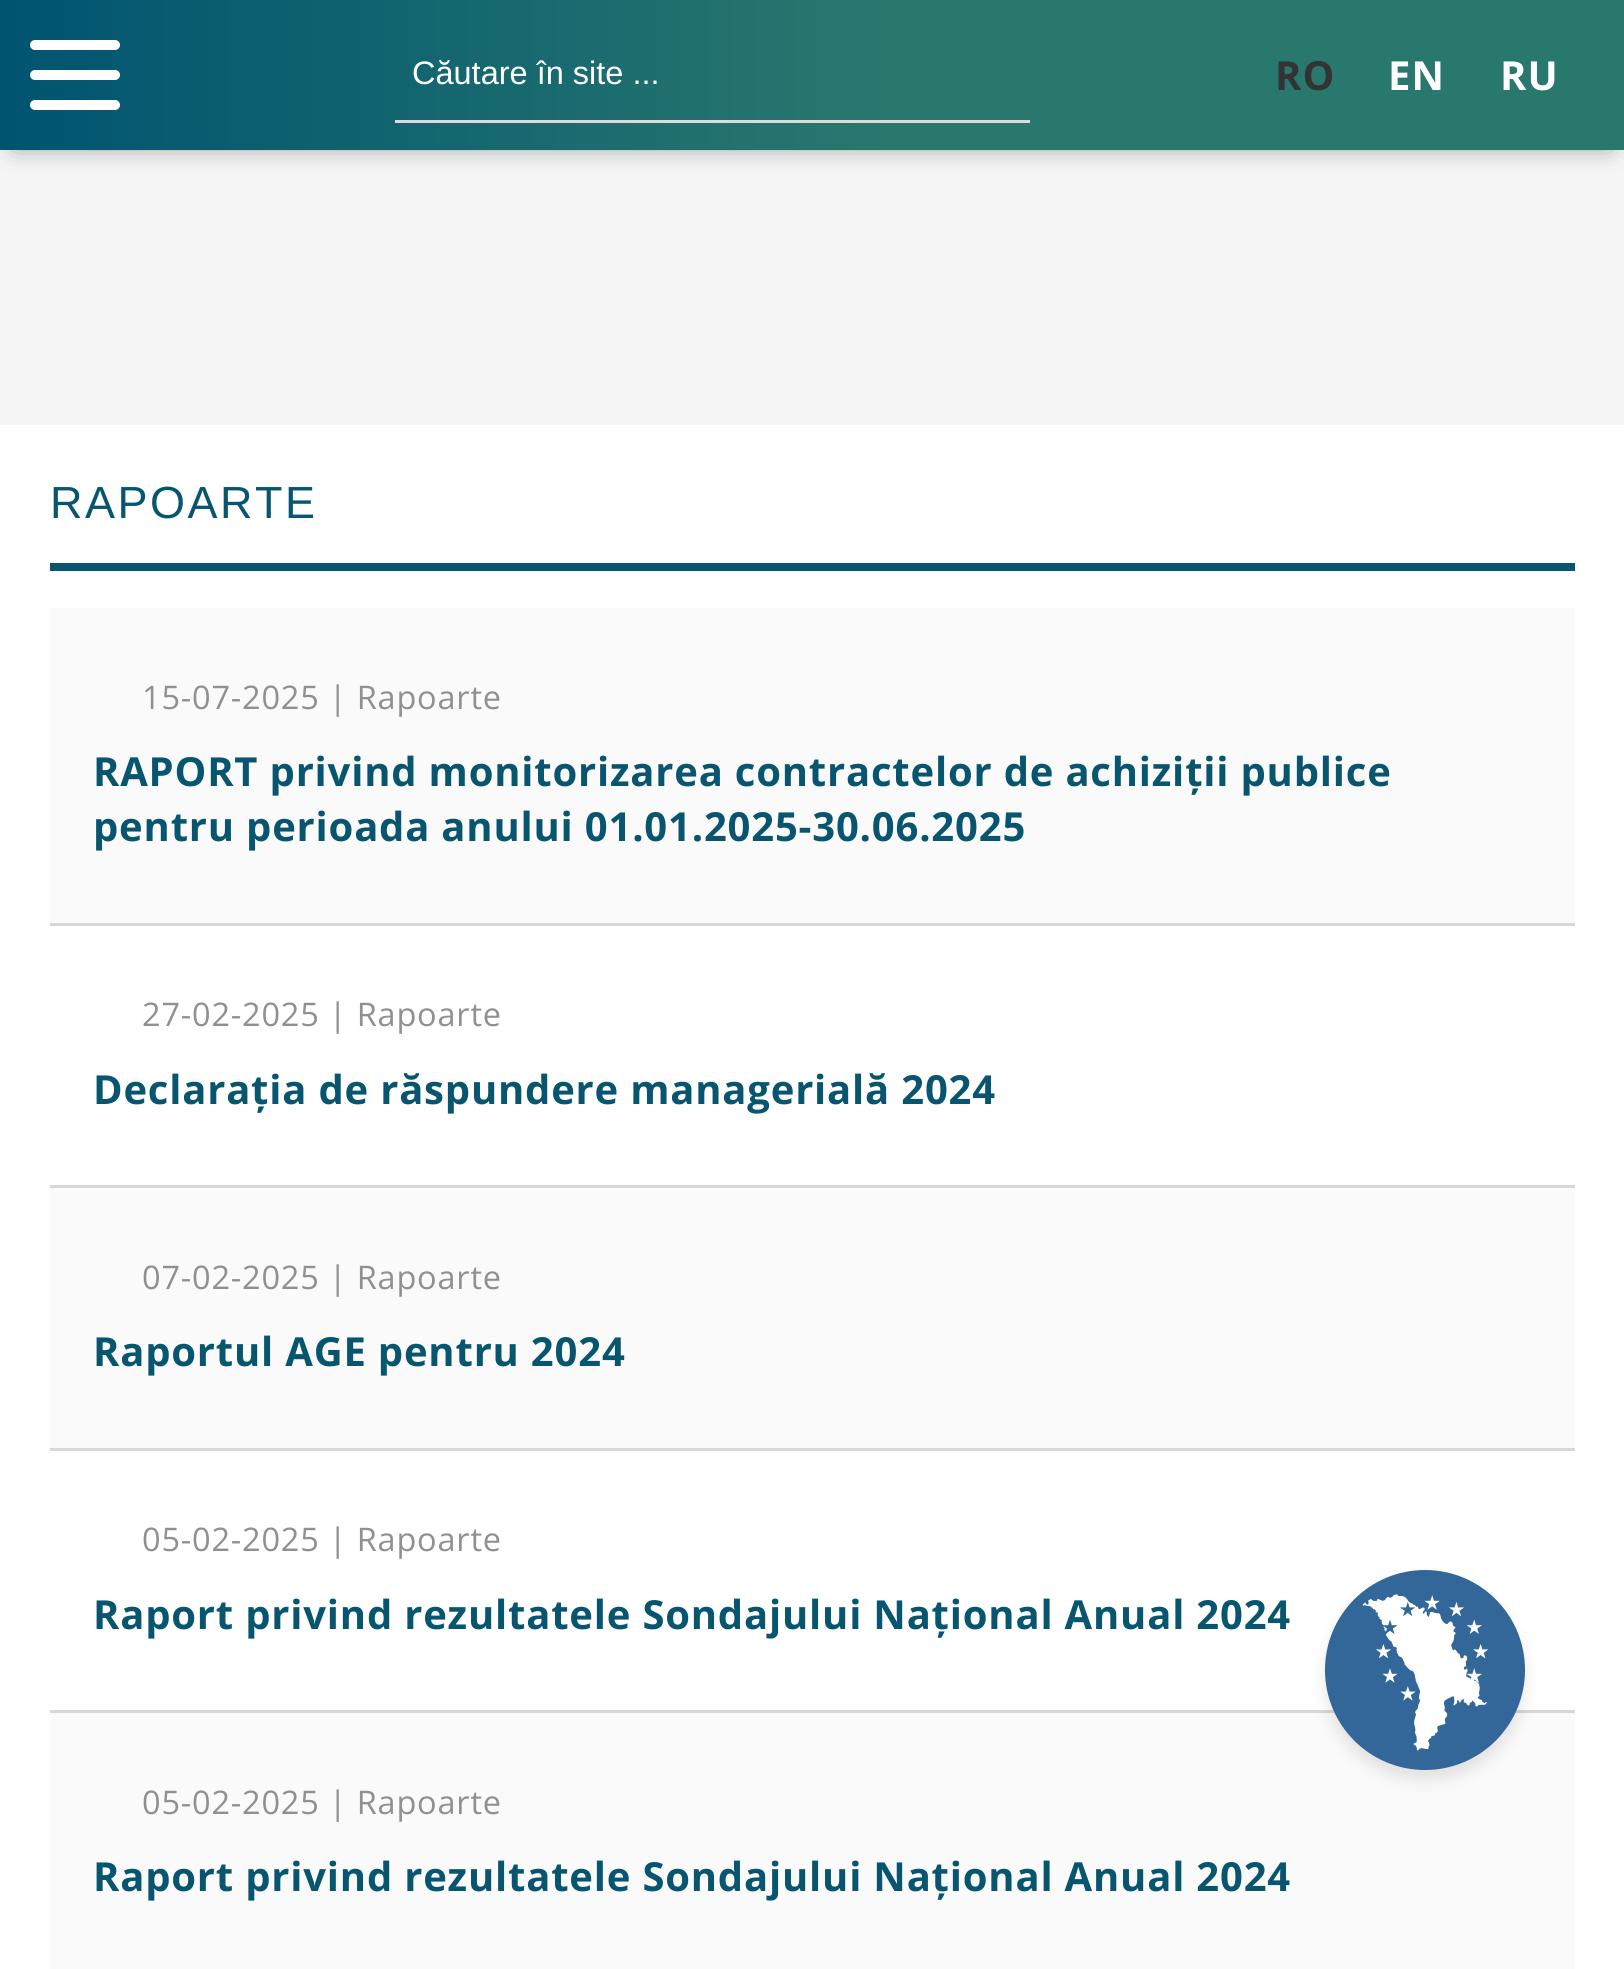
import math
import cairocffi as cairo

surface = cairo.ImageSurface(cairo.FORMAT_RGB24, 1624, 1969)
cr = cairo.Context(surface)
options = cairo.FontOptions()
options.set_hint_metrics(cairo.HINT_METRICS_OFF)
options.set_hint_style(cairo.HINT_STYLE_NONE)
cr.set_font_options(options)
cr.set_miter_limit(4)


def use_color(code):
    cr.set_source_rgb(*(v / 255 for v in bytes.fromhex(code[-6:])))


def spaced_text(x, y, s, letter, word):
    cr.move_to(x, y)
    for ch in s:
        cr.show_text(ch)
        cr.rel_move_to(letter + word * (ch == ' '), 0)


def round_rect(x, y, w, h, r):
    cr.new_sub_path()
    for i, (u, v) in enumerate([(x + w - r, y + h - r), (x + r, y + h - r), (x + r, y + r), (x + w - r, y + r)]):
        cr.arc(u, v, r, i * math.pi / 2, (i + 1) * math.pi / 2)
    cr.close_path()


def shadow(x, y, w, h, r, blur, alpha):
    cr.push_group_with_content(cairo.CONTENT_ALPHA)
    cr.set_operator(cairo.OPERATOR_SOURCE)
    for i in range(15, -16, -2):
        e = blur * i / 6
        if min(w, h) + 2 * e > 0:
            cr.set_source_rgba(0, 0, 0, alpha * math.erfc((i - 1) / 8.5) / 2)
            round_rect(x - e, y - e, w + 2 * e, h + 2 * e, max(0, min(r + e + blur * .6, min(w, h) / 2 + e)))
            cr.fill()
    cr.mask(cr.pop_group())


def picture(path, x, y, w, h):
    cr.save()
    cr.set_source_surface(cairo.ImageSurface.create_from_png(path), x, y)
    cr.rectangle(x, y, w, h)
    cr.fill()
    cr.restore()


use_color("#f5f5f5")
cr.paint()
use_color("#808080")
shadow(15, 25, 1595, 120, 0, 12.5, 1)
gradient = cairo.LinearGradient(0, 75, 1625, 75)
gradient.add_color_stop_rgba(0, 0, 0.329, 0.439, 1)
gradient.add_color_stop_rgba(0.55, 0.161, 0.471, 0.431, 1)
cr.set_source(gradient)
cr.rectangle(0, 0, 1624, 150)
cr.fill()
use_color("#ffffff")
round_rect(30, 40, 90, 10, 5)
cr.fill()
round_rect(30, 70, 90, 10, 5)
cr.fill()
round_rect(30, 100, 90, 10, 5)
cr.fill()
use_color("#dbdbdb")
cr.rectangle(395, 120, 635, 3)
cr.fill()
cr.select_font_face("Liberation Sans")
cr.set_font_size(32.5)
use_color("#ffffff")
cr.move_to(412, 84)
cr.show_text("Căutare în site ...")
cr.select_font_face("Open Sans", cairo.FONT_SLANT_NORMAL, cairo.FONT_WEIGHT_BOLD)
cr.set_font_size(40)
use_color("#333333")
spaced_text(1275, 90, "RO", 1, 0)
use_color("#ffffff")
spaced_text(1388, 90, "EN", 1, 0)
spaced_text(1500, 90, "RU", 1, 0)
cr.rectangle(0, 425, 1624, 1544)
cr.fill()
use_color("#085570")
cr.rectangle(50, 563, 1525, 8)
cr.fill()
cr.select_font_face("Liberation Sans")
cr.set_font_size(45)
spaced_text(50, 518, "RAPOARTE", 2.5, 0)
use_color("#fafafa")
cr.rectangle(50, 608, 1525, 315)
cr.fill()
use_color("#d7d7d7")
cr.rectangle(50, 923, 1525, 3)
cr.fill()
cr.select_font_face("Open Sans")
cr.set_font_size(32.5)
use_color("#909090")
spaced_text(142, 709, "15-07-2025 | Rapoarte", 0.8, 0)
cr.select_font_face("Open Sans", cairo.FONT_SLANT_NORMAL, cairo.FONT_WEIGHT_BOLD)
cr.set_font_size(40)
use_color("#085570")
spaced_text(93, 786, "RAPORT privind monitorizarea contractelor de achiziții publice", 0.8, 0)
spaced_text(93, 841, "pentru perioada anului 01.01.2025-30.06.2025", 0.8, 0)
use_color("#d7d7d7")
cr.rectangle(50, 1185, 1525, 3)
cr.fill()
cr.select_font_face("Open Sans")
cr.set_font_size(32.5)
use_color("#909090")
spaced_text(142, 1026, "27-02-2025 | Rapoarte", 0.8, 0)
cr.select_font_face("Open Sans", cairo.FONT_SLANT_NORMAL, cairo.FONT_WEIGHT_BOLD)
cr.set_font_size(40)
use_color("#085570")
spaced_text(93, 1104, "Declarația de răspundere managerială 2024", 0.8, 0)
use_color("#fafafa")
cr.rectangle(50, 1188, 1525, 260)
cr.fill()
use_color("#d7d7d7")
cr.rectangle(50, 1448, 1525, 3)
cr.fill()
cr.select_font_face("Open Sans")
cr.set_font_size(32.5)
use_color("#909090")
spaced_text(142, 1289, "07-02-2025 | Rapoarte", 0.8, 0)
cr.select_font_face("Open Sans", cairo.FONT_SLANT_NORMAL, cairo.FONT_WEIGHT_BOLD)
cr.set_font_size(40)
use_color("#085570")
spaced_text(93, 1366, "Raportul AGE pentru 2024", 0.8, 0)
use_color("#d7d7d7")
cr.rectangle(50, 1710, 1525, 3)
cr.fill()
cr.select_font_face("Open Sans")
cr.set_font_size(32.5)
use_color("#909090")
spaced_text(142, 1551, "05-02-2025 | Rapoarte", 0.8, 0)
cr.select_font_face("Open Sans", cairo.FONT_SLANT_NORMAL, cairo.FONT_WEIGHT_BOLD)
cr.set_font_size(40)
use_color("#085570")
spaced_text(93, 1629, "Raport privind rezultatele Sondajului Național Anual 2024", 0.8, 0)
use_color("#fafafa")
cr.rectangle(50, 1713, 1525, 256)
cr.fill()
cr.select_font_face("Open Sans")
cr.set_font_size(32.5)
use_color("#909090")
spaced_text(142, 1814, "05-02-2025 | Rapoarte", 0.8, 0)
cr.select_font_face("Open Sans", cairo.FONT_SLANT_NORMAL, cairo.FONT_WEIGHT_BOLD)
cr.set_font_size(40)
use_color("#085570")
spaced_text(93, 1891, "Raport privind rezultatele Sondajului Național Anual 2024", 0.8, 0)
use_color("#000000")
shadow(1325, 1580, 200, 200, 100, 7.5, 0.1)
use_color("#336699")
cr.arc(1425, 1670, 100, 0, 2 * math.pi)
cr.fill()
picture("img1.png", 1362, 1594, 127, 157)
surface.write_to_png("result.png")
